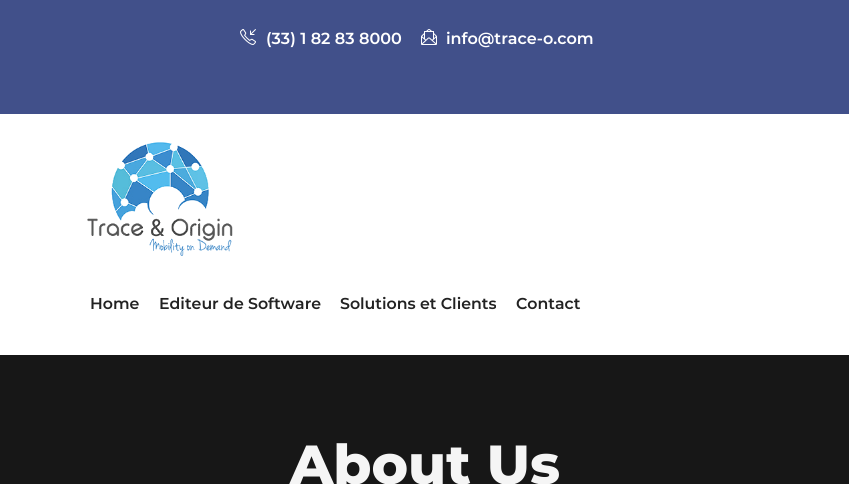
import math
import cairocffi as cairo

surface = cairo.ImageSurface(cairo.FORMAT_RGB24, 849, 484)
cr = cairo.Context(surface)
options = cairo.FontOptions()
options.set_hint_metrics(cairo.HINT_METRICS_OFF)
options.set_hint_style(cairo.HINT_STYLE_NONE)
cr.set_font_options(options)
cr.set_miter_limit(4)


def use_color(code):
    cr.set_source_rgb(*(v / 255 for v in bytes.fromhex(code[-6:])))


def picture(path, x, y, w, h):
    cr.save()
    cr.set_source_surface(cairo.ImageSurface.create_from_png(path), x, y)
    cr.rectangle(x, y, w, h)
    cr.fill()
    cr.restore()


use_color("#ffffff")
cr.paint()
use_color("#41508a")
cr.rectangle(0, 0, 849, 114)
cr.fill()
picture("img1.png", 240, 29, 16, 16)
cr.select_font_face("Montserrat SemiBold")
cr.set_font_size(16)
use_color("#ffffff")
cr.move_to(266, 44)
cr.show_text("(33) 1 82 83 8000")
picture("img2.png", 421, 29, 16, 16)
cr.move_to(446, 44)
cr.show_text("info@trace-o.com")
picture("img3.png", 87, 142, 146, 114)
cr.set_font_size(15.75)
use_color("#222222")
cr.move_to(90, 309)
cr.show_text("Home")
cr.move_to(159, 309)
cr.show_text("Editeur de Software")
cr.move_to(340, 309)
cr.show_text("Solutions et Clients")
cr.move_to(516, 309)
cr.show_text("Contact")
use_color("#171717")
cr.rectangle(0, 355, 849, 129)
cr.fill()
cr.select_font_face("Montserrat ExtraBold")
cr.set_font_size(55)
use_color("#f5f5f5")
cr.move_to(290, 484)
cr.show_text("About Us")
surface.write_to_png("result.png")
